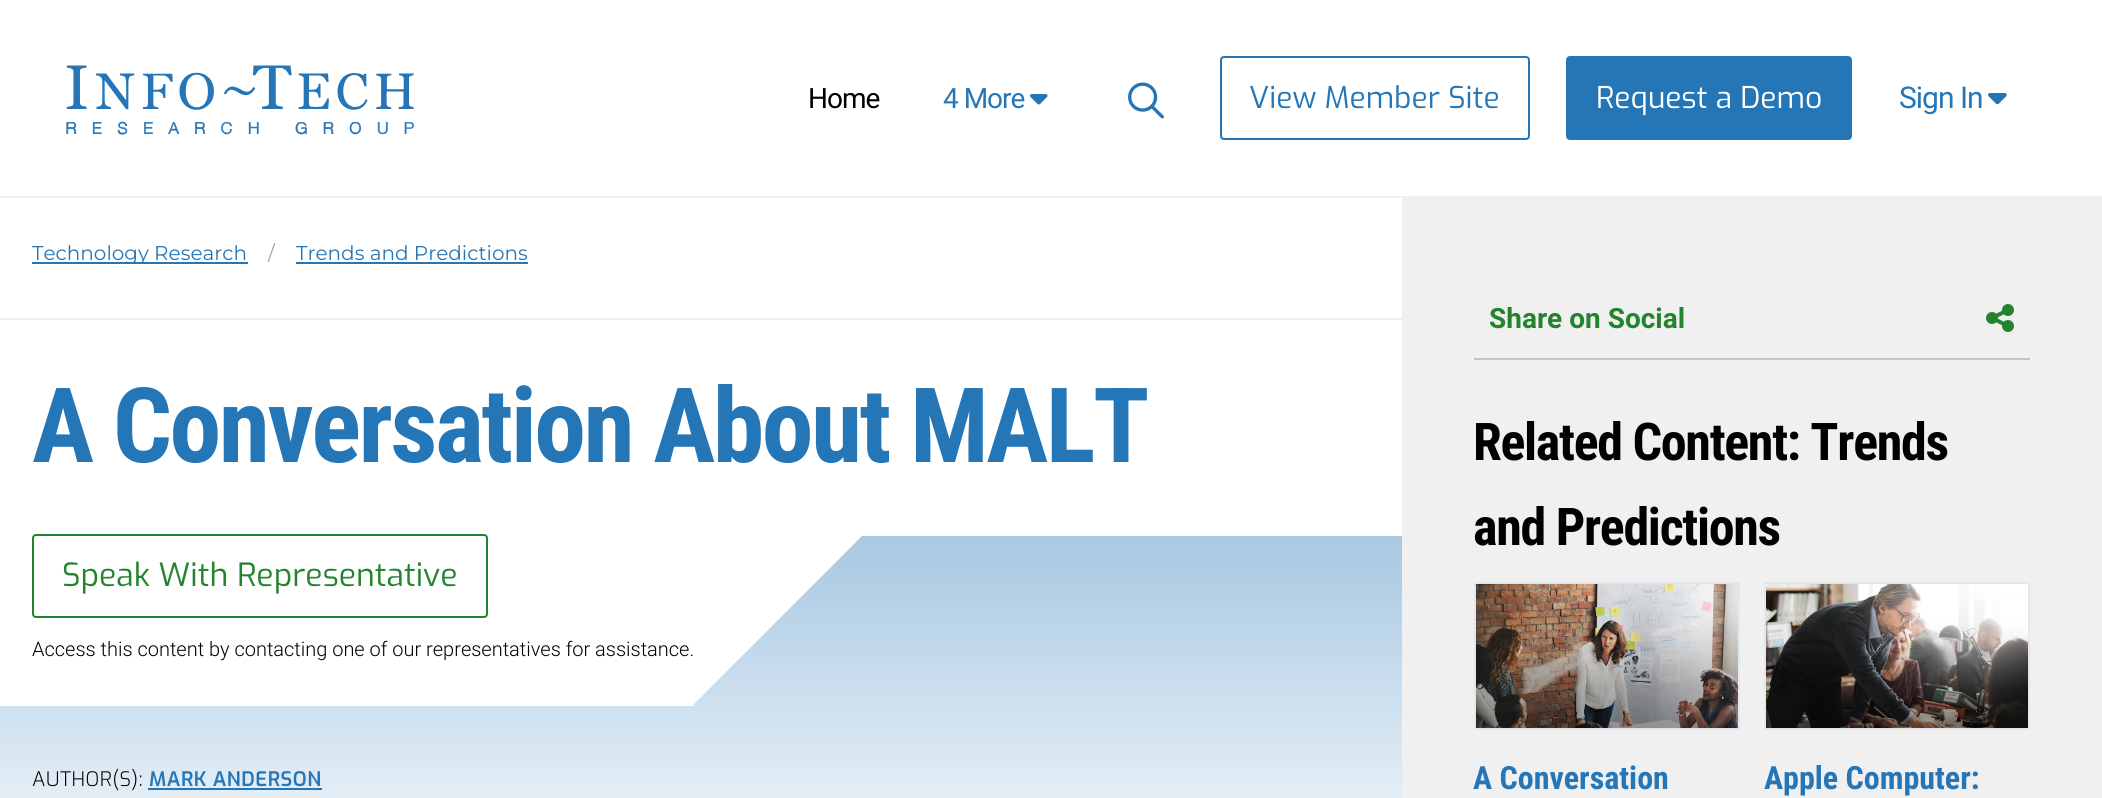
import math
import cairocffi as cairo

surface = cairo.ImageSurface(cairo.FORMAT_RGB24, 2102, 798)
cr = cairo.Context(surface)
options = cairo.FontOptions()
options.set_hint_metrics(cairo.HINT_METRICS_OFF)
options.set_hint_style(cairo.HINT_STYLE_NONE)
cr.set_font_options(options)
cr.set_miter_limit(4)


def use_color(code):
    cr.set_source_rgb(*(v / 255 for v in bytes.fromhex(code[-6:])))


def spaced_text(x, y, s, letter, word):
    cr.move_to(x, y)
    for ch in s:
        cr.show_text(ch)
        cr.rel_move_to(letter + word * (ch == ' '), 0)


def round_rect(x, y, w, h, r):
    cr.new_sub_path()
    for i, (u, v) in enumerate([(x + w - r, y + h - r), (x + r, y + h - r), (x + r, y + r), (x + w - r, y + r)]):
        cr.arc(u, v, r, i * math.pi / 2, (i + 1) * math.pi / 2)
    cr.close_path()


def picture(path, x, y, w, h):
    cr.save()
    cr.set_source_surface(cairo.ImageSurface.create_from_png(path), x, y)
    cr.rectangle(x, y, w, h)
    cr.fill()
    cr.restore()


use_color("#ffffff")
cr.paint()
picture("img1.png", 66, 65, 348, 70)
cr.select_font_face("Roboto")
cr.set_font_size(28)
use_color("#000000")
spaced_text(808, 108, "Home", -1, 0)
use_color("#2576b7")
spaced_text(943, 108, "4 More", -1, 0)
picture("img2.png", 1030, 94, 18, 11)
picture("img3.png", 1128, 82, 36, 37)
round_rect(1221, 57, 308, 82, 3)
cr.stroke()
cr.select_font_face("Exo")
cr.set_font_size(30)
cr.move_to(1249, 108)
cr.show_text("View Member Site")
round_rect(1567, 57, 284, 82, 3)
cr.fill_preserve()
cr.stroke()
use_color("#ffffff")
cr.move_to(1596, 108)
cr.show_text("Request a Demo")
cr.select_font_face("Roboto")
use_color("#2576b7")
spaced_text(1899, 108, "Sign In", -1, 0)
picture("img4.png", 1988, 93, 19, 12)
use_color("#f0f0f0")
cr.rectangle(0, 196, 2102, 2)
cr.fill()
cr.rectangle(0, 318, 1402, 2)
cr.fill()
use_color("#2576b7")
cr.rectangle(32, 262, 216, 2)
cr.fill()
cr.select_font_face("Montserrat Thin")
cr.set_font_size(20)
cr.move_to(32, 260)
cr.show_text("Technology Research")
use_color("#9ca3af")
cr.move_to(268, 260)
cr.show_text("/")
use_color("#2576b7")
cr.move_to(296, 260)
cr.show_text("Trends and Predictions")
cr.rectangle(296, 262, 232, 2)
cr.fill()
cr.select_font_face("Roboto Condensed", cairo.FONT_SLANT_NORMAL, cairo.FONT_WEIGHT_BOLD)
cr.set_font_size(104)
spaced_text(32, 462, "A Conversation About MALT", -2.6, 0)
gradient = cairo.LinearGradient(701, 536, 701, 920)
gradient.add_color_stop_rgba(0, 0.659, 0.784, 0.886, 1)
gradient.add_color_stop_rgba(1, 1, 1, 1, 1)
cr.set_source(gradient)
cr.rectangle(0, 536, 1402, 262)
cr.fill()
use_color("#ffffff")
cr.rectangle(0, 536, 694, 170)
cr.fill()
round_rect(33, 535, 454, 82, 3)
use_color("#24842e")
cr.stroke()
cr.select_font_face("Exo")
cr.set_font_size(32)
cr.move_to(62, 586)
cr.show_text("Speak With Representative")
use_color("#ffffff")
cr.new_path()
cr.move_to(864, 534)
cr.line_to(692, 706)
cr.line_to(692, 534)
cr.close_path()
cr.fill()
cr.select_font_face("Roboto Light")
cr.set_font_size(20)
use_color("#000000")
cr.move_to(32, 656)
cr.show_text("Access this content by contacting one of our representatives for assistance.")
cr.select_font_face("Exo Light")
spaced_text(32, 786, "AUTHOR(S):", 0.5, 0)
cr.select_font_face("Exo SemiBold")
use_color("#2576b7")
spaced_text(149, 786, "MARK ANDERSON", 0.5, 0)
cr.rectangle(148, 788, 174, 2)
cr.fill()
use_color("#f0f0f0")
cr.rectangle(1402, 198, 700, 600)
cr.fill()
use_color("#c4c4c4")
cr.rectangle(1474, 358, 556, 2)
cr.fill()
cr.select_font_face("Roboto", cairo.FONT_SLANT_NORMAL, cairo.FONT_WEIGHT_BOLD)
cr.set_font_size(28)
use_color("#24842e")
cr.move_to(1489, 328)
cr.show_text("Share on Social")
picture("img5.png", 1986, 304, 28, 28)
cr.select_font_face("Roboto Condensed", cairo.FONT_SLANT_NORMAL, cairo.FONT_WEIGHT_BOLD)
cr.set_font_size(52)
use_color("#000000")
spaced_text(1473, 460, "Related Content: Trends", -1.3, 0)
spaced_text(1473, 545, "and Predictions", -1.3, 0)
cr.rectangle(1475, 583, 264, 146)
use_color("#e5e7eb")
cr.stroke()
picture("img6.png", 1476, 584, 262, 144)
cr.set_font_size(32)
use_color("#2576b7")
cr.move_to(1473, 789)
cr.show_text("A Conversation")
cr.rectangle(1765, 583, 264, 146)
use_color("#e5e7eb")
cr.stroke()
picture("img7.png", 1766, 584, 262, 144)
use_color("#2576b7")
cr.move_to(1764, 789)
cr.show_text("Apple Computer:")
surface.write_to_png("result.png")
